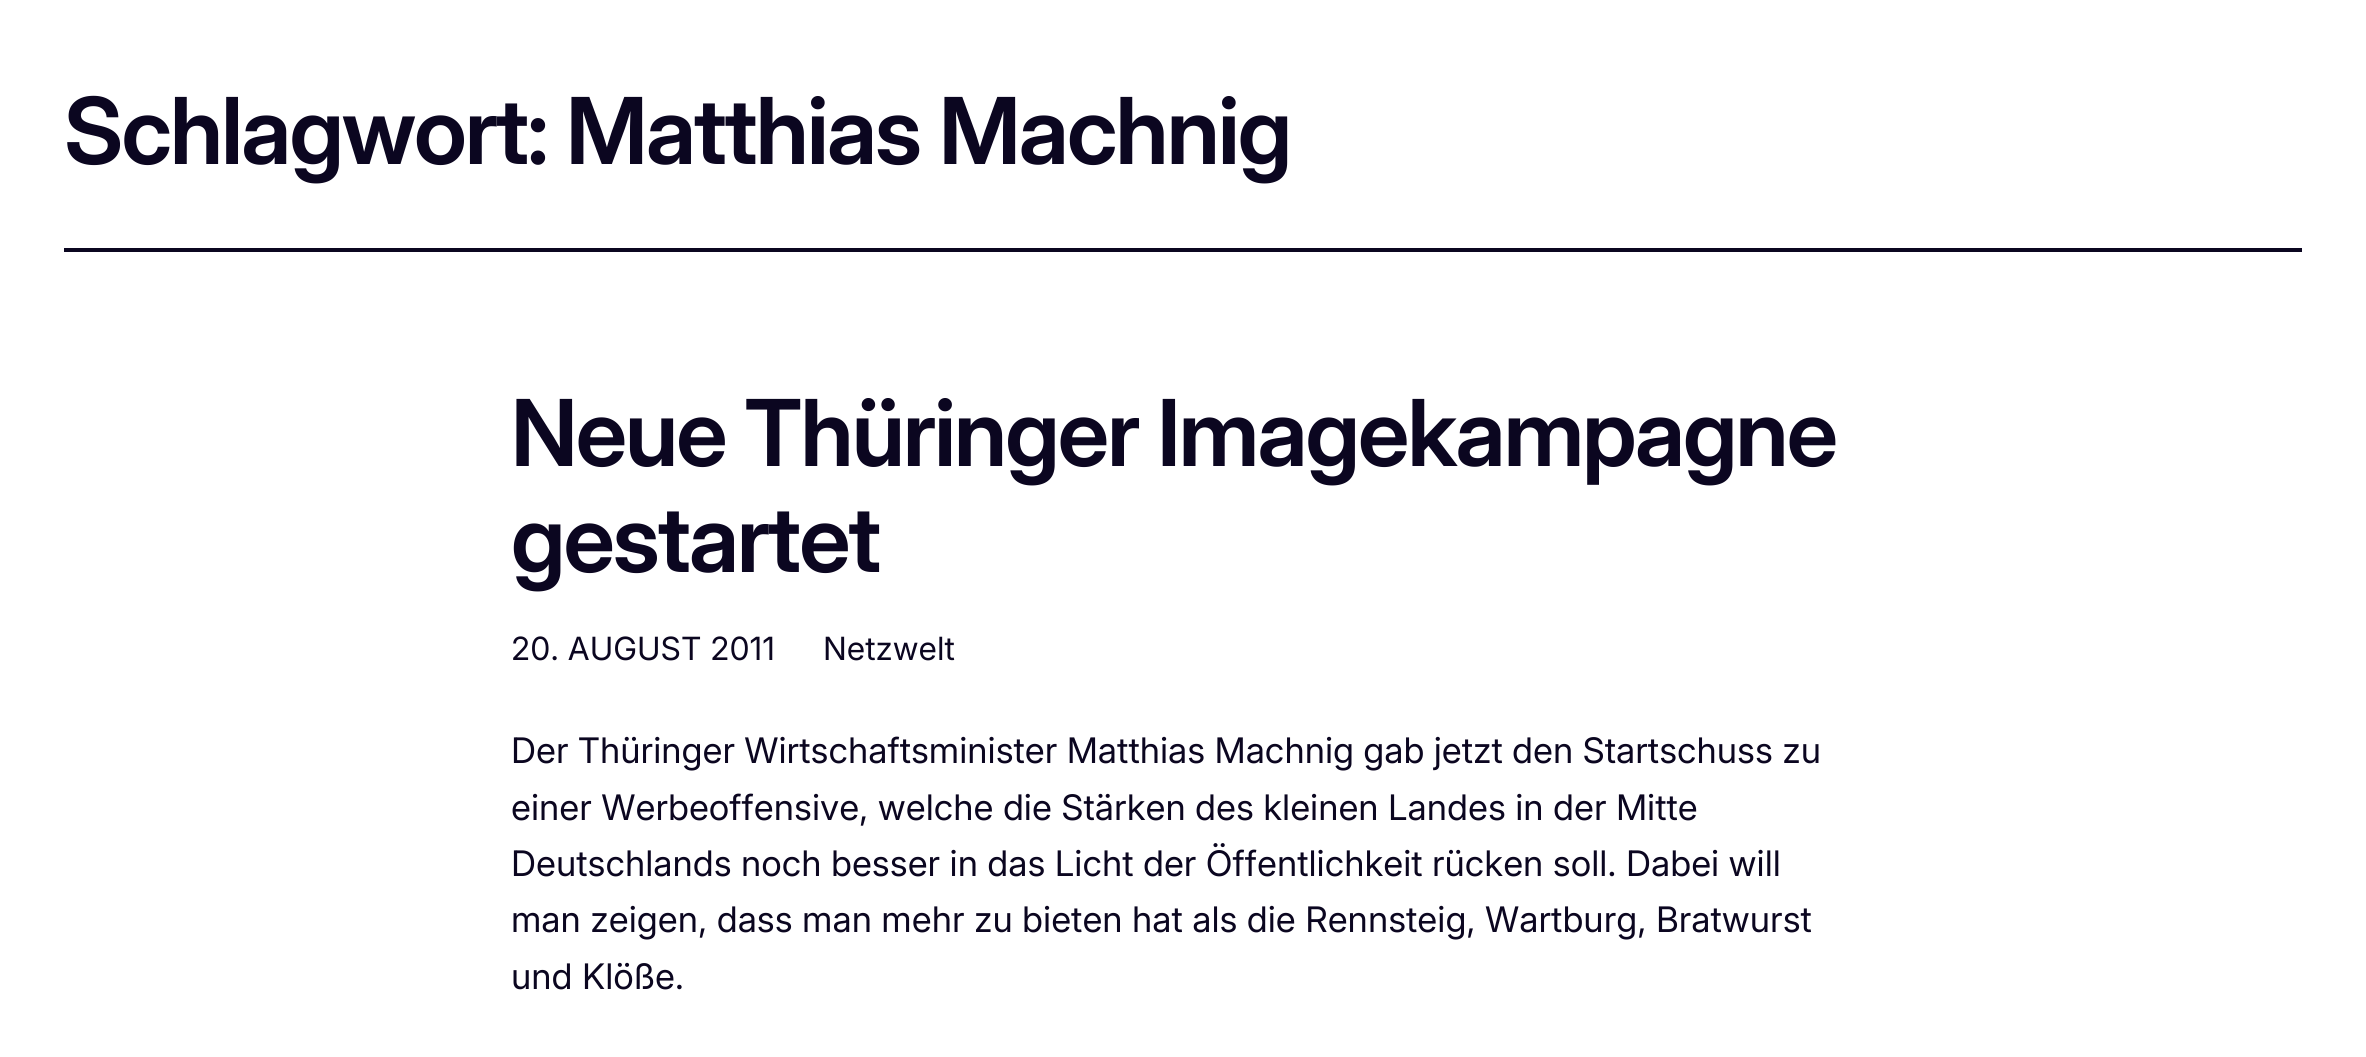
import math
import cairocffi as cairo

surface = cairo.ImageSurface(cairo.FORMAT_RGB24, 2366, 1057)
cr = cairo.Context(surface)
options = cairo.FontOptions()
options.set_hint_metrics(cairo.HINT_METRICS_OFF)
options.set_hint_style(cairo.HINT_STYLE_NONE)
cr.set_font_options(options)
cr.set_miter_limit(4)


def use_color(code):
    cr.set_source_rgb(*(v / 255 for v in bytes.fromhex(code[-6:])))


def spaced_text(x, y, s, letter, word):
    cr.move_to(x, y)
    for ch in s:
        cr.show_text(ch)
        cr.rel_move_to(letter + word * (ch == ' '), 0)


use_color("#ffffff")
cr.paint()
cr.select_font_face("Inter SemiBold")
cr.set_font_size(92.25)
use_color("#0b0620")
spaced_text(64, 164, "Schlagwort: Matthias Machnig", -1.85, 0)
cr.rectangle(64, 248, 2238, 4)
cr.fill()
spaced_text(511, 466, "Neue Thüringer Imagekampagne", -1.85, 0)
spaced_text(511, 572, "gestartet", -1.85, 0)
cr.select_font_face("Inter")
cr.set_font_size(32)
cr.move_to(511, 660)
cr.show_text("20. AUGUST 2011")
cr.move_to(823, 660)
cr.show_text("Netzwelt")
cr.select_font_face("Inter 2")
cr.set_font_size(35.2)
spaced_text(511, 763, "Der Thüringer Wirtschaftsminister Matthias Machnig gab jetzt den Startschuss zu", 0, -0.25)
spaced_text(511, 820, "einer Werbeoffensive, welche die Stärken des kleinen Landes in der Mitte", 0, -0.1)
spaced_text(511, 876, "Deutschlands noch besser in das Licht der Öffentlichkeit rücken soll. Dabei will", 0, -0.1)
spaced_text(511, 932, "man zeigen, dass man mehr zu bieten hat als die Rennsteig, Wartburg, Bratwurst", 0, -0.1)
cr.move_to(511, 989)
cr.show_text("und Klöße.")
surface.write_to_png("result.png")
